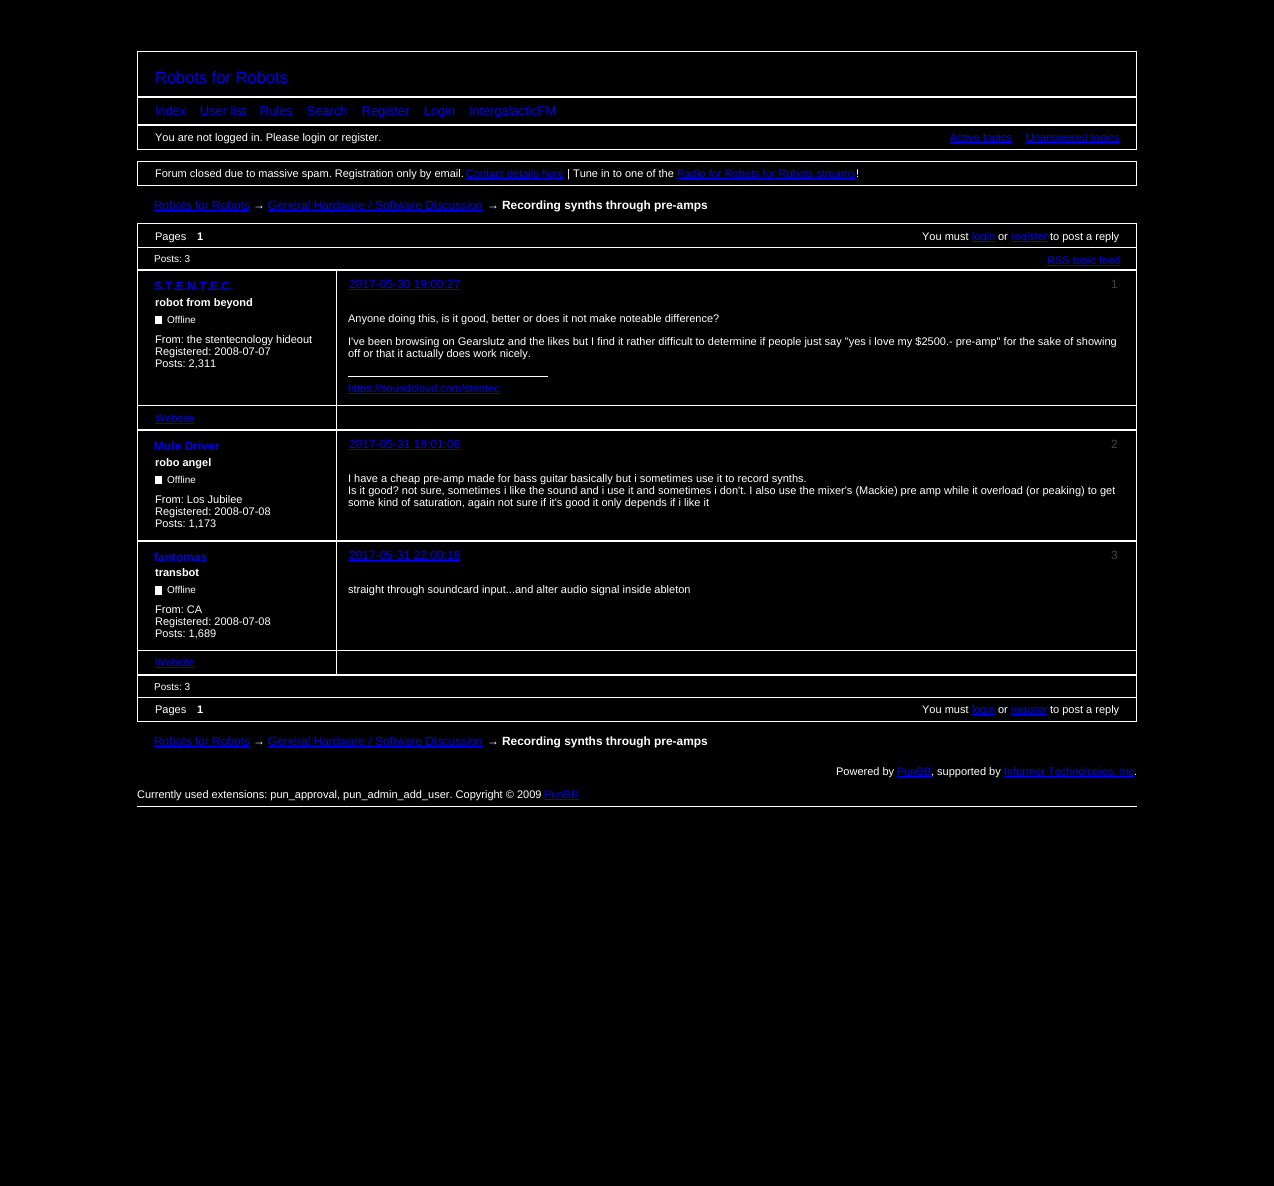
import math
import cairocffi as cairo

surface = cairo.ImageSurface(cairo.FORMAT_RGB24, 1274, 1186)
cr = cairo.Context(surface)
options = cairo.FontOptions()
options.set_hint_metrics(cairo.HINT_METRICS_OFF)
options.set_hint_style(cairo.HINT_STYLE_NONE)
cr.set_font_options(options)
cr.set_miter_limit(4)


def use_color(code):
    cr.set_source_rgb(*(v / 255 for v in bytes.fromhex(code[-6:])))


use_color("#000000")
cr.paint()
cr.rectangle(137.5, 51.5, 999, 45)
use_color("#ffffff")
cr.set_line_width(1)
cr.stroke()
cr.select_font_face("Liberation Sans")
cr.set_font_size(16.5)
use_color("#0000ee")
cr.move_to(155, 83)
cr.show_text("Robots for Robots")
cr.rectangle(137.5, 97.5, 999, 27)
use_color("#ffffff")
cr.stroke()
cr.set_font_size(12.75)
use_color("#0000ee")
cr.move_to(155, 115)
cr.show_text("Index")
cr.move_to(200, 115)
cr.show_text("User list")
cr.move_to(260, 115)
cr.show_text("Rules")
cr.move_to(307, 115)
cr.show_text("Search")
cr.move_to(362, 115)
cr.show_text("Register")
cr.move_to(424, 115)
cr.show_text("Login")
cr.move_to(469, 115)
cr.show_text("IntergalacticFM")
cr.rectangle(137.5, 125.5, 999, 24)
use_color("#ffffff")
cr.stroke()
cr.set_font_size(11)
cr.move_to(155, 141)
cr.show_text("You are not logged in. Please login or register.")
use_color("#0000ee")
cr.rectangle(950, 142, 62, 1)
cr.fill()
cr.move_to(950, 141)
cr.show_text("Active topics")
cr.rectangle(1026, 142, 94, 1)
cr.fill()
cr.move_to(1026, 141)
cr.show_text("Unanswered topics")
cr.rectangle(137.5, 161.5, 999, 24)
use_color("#ffffff")
cr.stroke()
cr.move_to(155, 177)
cr.show_text("Forum closed due to massive spam. Registration only by email.")
use_color("#0000ee")
cr.move_to(466, 177)
cr.show_text("Contact details here")
cr.rectangle(466, 178, 98, 1)
cr.fill()
use_color("#ffffff")
cr.move_to(567, 177)
cr.show_text("| Tune in to one of the")
use_color("#0000ee")
cr.move_to(677, 177)
cr.show_text("Radio for Robots for Robots streams")
cr.rectangle(677, 178, 179, 1)
cr.fill()
use_color("#ffffff")
cr.move_to(856, 177)
cr.show_text("!")
cr.set_font_size(11.9)
use_color("#0000ee")
cr.move_to(154, 209)
cr.show_text("Robots for Robots")
cr.rectangle(154, 210, 96, 1)
cr.fill()
use_color("#ffffff")
cr.move_to(253, 209)
cr.show_text("→")
use_color("#0000ee")
cr.move_to(268, 209)
cr.show_text("General Hardware / Software Discussion")
cr.rectangle(268, 210, 215, 1)
cr.fill()
use_color("#ffffff")
cr.move_to(487, 209)
cr.show_text("→")
cr.select_font_face("Liberation Sans", cairo.FONT_SLANT_NORMAL, cairo.FONT_WEIGHT_BOLD)
cr.move_to(502, 209)
cr.show_text("Recording synths through pre-amps")
cr.rectangle(137, 223, 1000, 1)
cr.fill()
cr.rectangle(1136, 223, 1, 24)
cr.fill()
cr.rectangle(137, 223, 1, 24)
cr.fill()
cr.select_font_face("Liberation Sans")
cr.set_font_size(11)
cr.move_to(155, 240)
cr.show_text("Pages")
cr.select_font_face("Liberation Sans", cairo.FONT_SLANT_NORMAL, cairo.FONT_WEIGHT_BOLD)
cr.move_to(197, 240)
cr.show_text("1")
cr.select_font_face("Liberation Sans")
cr.move_to(922, 240)
cr.show_text("You must")
use_color("#0000ee")
cr.rectangle(972, 241, 23, 1)
cr.fill()
cr.move_to(972, 240)
cr.show_text("login")
use_color("#ffffff")
cr.move_to(998, 240)
cr.show_text("or")
use_color("#0000ee")
cr.rectangle(1011, 241, 36, 1)
cr.fill()
cr.move_to(1011, 240)
cr.show_text("register")
use_color("#ffffff")
cr.move_to(1050, 240)
cr.show_text("to post a reply")
cr.rectangle(137.5, 247.5, 999, 22)
cr.stroke()
cr.set_font_size(10)
cr.move_to(154, 262)
cr.show_text("Posts: 3")
use_color("#0000ee")
cr.rectangle(1047, 265, 73, 1)
cr.fill()
cr.set_font_size(11)
cr.move_to(1047, 264)
cr.show_text("RSS topic feed")
cr.rectangle(137.5, 270.5, 999, 404)
use_color("#ffffff")
cr.stroke()
cr.rectangle(138, 429, 998, 2)
cr.fill()
cr.rectangle(336, 271, 1, 134)
cr.fill()
cr.select_font_face("Liberation Sans", cairo.FONT_SLANT_NORMAL, cairo.FONT_WEIGHT_BOLD)
cr.set_font_size(12)
use_color("#0000ee")
cr.move_to(154, 290)
cr.show_text("S.T.E.N.T.E.C.")
cr.select_font_face("Liberation Sans")
cr.move_to(349, 288)
cr.show_text("2017-05-30 19:00:27")
cr.rectangle(349, 289, 111, 1)
cr.fill()
use_color("#424242")
cr.move_to(1111, 288)
cr.show_text("1")
cr.select_font_face("Liberation Sans", cairo.FONT_SLANT_NORMAL, cairo.FONT_WEIGHT_BOLD)
cr.set_font_size(11)
use_color("#ffffff")
cr.move_to(155, 306)
cr.show_text("robot from beyond")
cr.rectangle(155, 316, 7, 8)
cr.fill()
cr.select_font_face("Liberation Sans")
cr.set_font_size(10)
cr.move_to(167, 323)
cr.show_text("Offline")
cr.set_font_size(11)
cr.move_to(155, 343)
cr.show_text("From: the stentecnology hideout")
cr.move_to(155, 355)
cr.show_text("Registered: 2008-07-07")
cr.move_to(155, 367)
cr.show_text("Posts: 2,311")
cr.move_to(348, 322)
cr.show_text("Anyone doing this, is it good, better or does it not make noteable difference?")
cr.move_to(348, 345)
cr.show_text("I've been browsing on Gearslutz and the likes but I find it rather difficult to determine if people just say \"yes i love my $2500.- pre-amp\" for the sake of showing")
cr.move_to(348, 357)
cr.show_text("off or that it actually does work nicely.")
cr.rectangle(348, 376, 200, 1)
cr.fill()
use_color("#0000ee")
cr.rectangle(348, 393, 152, 1)
cr.fill()
cr.move_to(348, 392)
cr.show_text("https://soundcloud.com/stentec")
use_color("#ffffff")
cr.rectangle(138, 405, 998, 1)
cr.fill()
cr.rectangle(336, 406, 1, 23)
cr.fill()
use_color("#0000ee")
cr.move_to(155, 422)
cr.show_text("Website")
cr.rectangle(155, 423, 39, 1)
cr.fill()
use_color("#ffffff")
cr.rectangle(138, 540, 998, 2)
cr.fill()
cr.rectangle(336, 431, 1, 109)
cr.fill()
cr.select_font_face("Liberation Sans", cairo.FONT_SLANT_NORMAL, cairo.FONT_WEIGHT_BOLD)
cr.set_font_size(12)
use_color("#0000ee")
cr.move_to(154, 450)
cr.show_text("Mule Driver")
cr.select_font_face("Liberation Sans")
cr.move_to(349, 448)
cr.show_text("2017-05-31 18:01:06")
cr.rectangle(349, 449, 111, 1)
cr.fill()
use_color("#424242")
cr.move_to(1111, 448)
cr.show_text("2")
cr.select_font_face("Liberation Sans", cairo.FONT_SLANT_NORMAL, cairo.FONT_WEIGHT_BOLD)
cr.set_font_size(11)
use_color("#ffffff")
cr.move_to(155, 466)
cr.show_text("robo angel")
cr.rectangle(155, 476, 7, 8)
cr.fill()
cr.select_font_face("Liberation Sans")
cr.set_font_size(10)
cr.move_to(167, 483)
cr.show_text("Offline")
cr.set_font_size(11)
cr.move_to(155, 503)
cr.show_text("From: Los Jubilee")
cr.move_to(155, 515)
cr.show_text("Registered: 2008-07-08")
cr.move_to(155, 527)
cr.show_text("Posts: 1,173")
cr.move_to(348, 482)
cr.show_text("I have a cheap pre-amp made for bass guitar basically but i sometimes use it to record synths.")
cr.move_to(348, 494)
cr.show_text("Is it good? not sure, sometimes i like the sound and i use it and sometimes i don't. I also use the mixer's (Mackie) pre amp while it overload (or peaking) to get")
cr.move_to(348, 506)
cr.show_text("some kind of saturation, again not sure if it's good it only depends if i like it")
cr.rectangle(336, 542, 1, 108)
cr.fill()
cr.select_font_face("Liberation Sans", cairo.FONT_SLANT_NORMAL, cairo.FONT_WEIGHT_BOLD)
cr.set_font_size(12)
use_color("#0000ee")
cr.move_to(154, 561)
cr.show_text("fantomas")
cr.select_font_face("Liberation Sans")
cr.move_to(349, 559)
cr.show_text("2017-05-31 22:00:18")
cr.rectangle(349, 560, 111, 1)
cr.fill()
use_color("#424242")
cr.move_to(1111, 559)
cr.show_text("3")
cr.select_font_face("Liberation Sans", cairo.FONT_SLANT_NORMAL, cairo.FONT_WEIGHT_BOLD)
cr.set_font_size(11)
use_color("#ffffff")
cr.move_to(155, 576)
cr.show_text("transbot")
cr.rectangle(155, 586, 7, 9)
cr.fill()
cr.select_font_face("Liberation Sans")
cr.set_font_size(10)
cr.move_to(167, 593)
cr.show_text("Offline")
cr.set_font_size(11)
cr.move_to(155, 613)
cr.show_text("From: CA")
cr.move_to(155, 625)
cr.show_text("Registered: 2008-07-08")
cr.move_to(155, 637)
cr.show_text("Posts: 1,689")
cr.move_to(348, 593)
cr.show_text("straight through soundcard input...and alter audio signal inside ableton")
cr.rectangle(138, 650, 998, 1)
cr.fill()
cr.rectangle(336, 651, 1, 23)
cr.fill()
use_color("#0000ee")
cr.move_to(155, 666)
cr.show_text("Website")
cr.rectangle(155, 667, 39, 1)
cr.fill()
cr.rectangle(137.5, 675.5, 999, 22)
use_color("#ffffff")
cr.stroke()
cr.set_font_size(10)
cr.move_to(154, 690)
cr.show_text("Posts: 3")
cr.rectangle(1136, 698, 1, 24)
cr.fill()
cr.rectangle(137, 721, 1000, 1)
cr.fill()
cr.rectangle(137, 698, 1, 24)
cr.fill()
cr.set_font_size(11)
cr.move_to(155, 713)
cr.show_text("Pages")
cr.select_font_face("Liberation Sans", cairo.FONT_SLANT_NORMAL, cairo.FONT_WEIGHT_BOLD)
cr.move_to(197, 713)
cr.show_text("1")
cr.select_font_face("Liberation Sans")
cr.move_to(922, 713)
cr.show_text("You must")
use_color("#0000ee")
cr.rectangle(972, 714, 23, 1)
cr.fill()
cr.move_to(972, 713)
cr.show_text("login")
use_color("#ffffff")
cr.move_to(998, 713)
cr.show_text("or")
use_color("#0000ee")
cr.rectangle(1011, 714, 36, 1)
cr.fill()
cr.move_to(1011, 713)
cr.show_text("register")
use_color("#ffffff")
cr.move_to(1050, 713)
cr.show_text("to post a reply")
cr.set_font_size(11.9)
use_color("#0000ee")
cr.move_to(154, 745)
cr.show_text("Robots for Robots")
cr.rectangle(154, 746, 96, 1)
cr.fill()
use_color("#ffffff")
cr.move_to(253, 745)
cr.show_text("→")
use_color("#0000ee")
cr.move_to(268, 745)
cr.show_text("General Hardware / Software Discussion")
cr.rectangle(268, 746, 215, 1)
cr.fill()
use_color("#ffffff")
cr.move_to(487, 745)
cr.show_text("→")
cr.select_font_face("Liberation Sans", cairo.FONT_SLANT_NORMAL, cairo.FONT_WEIGHT_BOLD)
cr.move_to(502, 745)
cr.show_text("Recording synths through pre-amps")
cr.select_font_face("Liberation Sans")
cr.set_font_size(11)
cr.move_to(836, 775)
cr.show_text("Powered by")
use_color("#0000ee")
cr.move_to(897, 775)
cr.show_text("PunBB")
cr.rectangle(897, 776, 34, 1)
cr.fill()
use_color("#ffffff")
cr.move_to(931, 775)
cr.show_text(", supported by")
use_color("#0000ee")
cr.rectangle(1004, 776, 130, 1)
cr.fill()
cr.move_to(1004, 775)
cr.show_text("Informer Technologies, Inc")
use_color("#ffffff")
cr.move_to(1134, 775)
cr.show_text(".")
cr.rectangle(137, 806, 1000, 1)
cr.fill()
cr.move_to(137, 798)
cr.show_text("Currently used extensions: pun_approval, pun_admin_add_user. Copyright © 2009")
use_color("#0000ee")
cr.move_to(544, 798)
cr.show_text("PunBB")
cr.rectangle(544, 799, 35, 1)
cr.fill()
surface.write_to_png("result.png")
